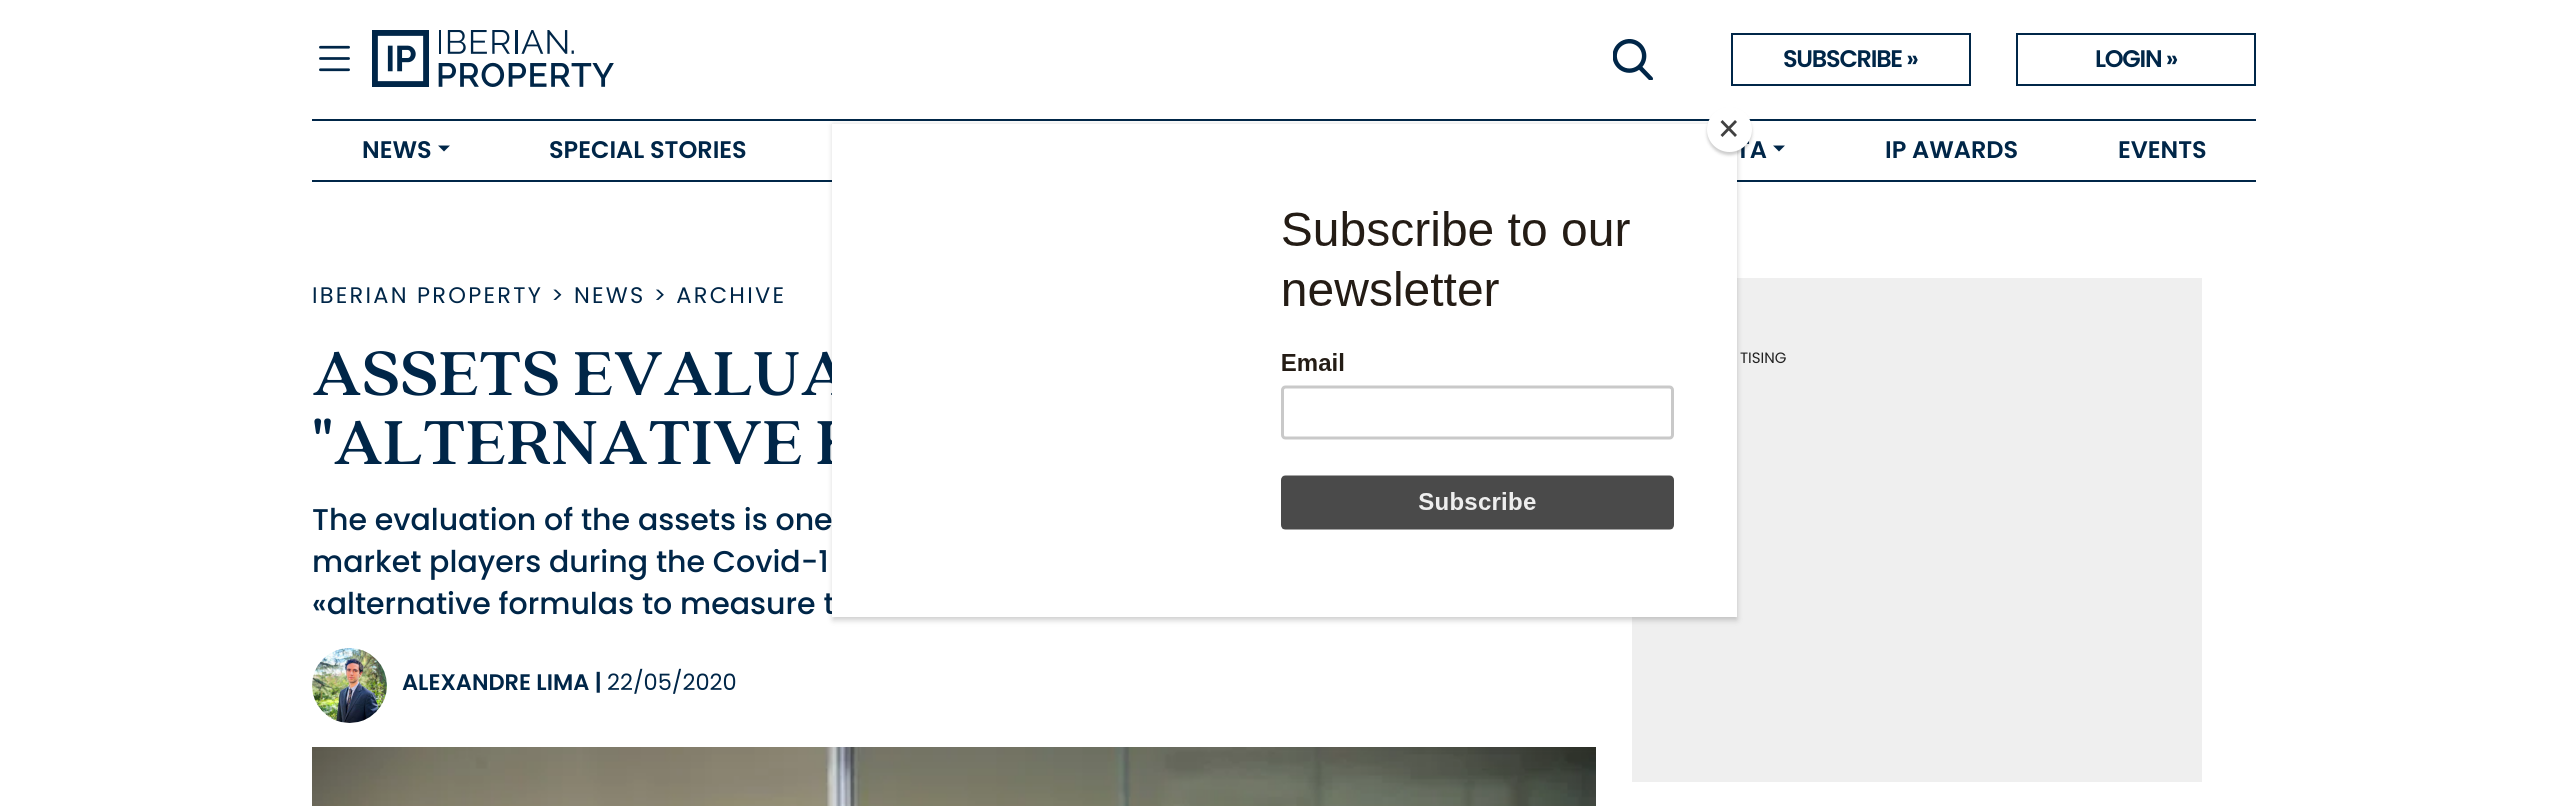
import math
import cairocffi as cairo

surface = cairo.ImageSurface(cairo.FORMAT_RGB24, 2568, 806)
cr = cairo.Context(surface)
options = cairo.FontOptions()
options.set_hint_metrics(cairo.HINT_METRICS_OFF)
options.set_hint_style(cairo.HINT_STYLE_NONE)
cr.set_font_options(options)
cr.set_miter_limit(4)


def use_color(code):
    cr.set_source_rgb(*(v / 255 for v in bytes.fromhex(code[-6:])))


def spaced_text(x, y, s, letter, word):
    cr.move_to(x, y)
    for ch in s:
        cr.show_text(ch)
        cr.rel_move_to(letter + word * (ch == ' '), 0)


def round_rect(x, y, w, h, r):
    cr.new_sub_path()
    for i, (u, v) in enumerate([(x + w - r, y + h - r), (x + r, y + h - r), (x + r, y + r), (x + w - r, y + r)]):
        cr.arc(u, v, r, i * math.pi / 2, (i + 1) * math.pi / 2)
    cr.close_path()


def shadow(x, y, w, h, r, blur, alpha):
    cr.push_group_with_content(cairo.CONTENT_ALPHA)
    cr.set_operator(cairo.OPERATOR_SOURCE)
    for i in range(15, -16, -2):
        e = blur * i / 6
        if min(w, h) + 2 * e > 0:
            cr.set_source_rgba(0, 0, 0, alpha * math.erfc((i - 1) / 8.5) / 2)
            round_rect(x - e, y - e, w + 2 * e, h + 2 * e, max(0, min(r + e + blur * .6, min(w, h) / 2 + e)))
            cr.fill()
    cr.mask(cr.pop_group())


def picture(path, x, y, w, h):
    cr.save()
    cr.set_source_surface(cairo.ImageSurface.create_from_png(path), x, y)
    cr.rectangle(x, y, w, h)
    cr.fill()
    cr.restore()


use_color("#ffffff")
cr.paint()
use_color("#002648")
cr.rectangle(312, 119, 1944, 2)
cr.fill()
picture("img1.png", 319, 45, 31, 27)
picture("img2.png", 372, 30, 242, 57)
picture("img3.png", 1613, 39, 40, 41)
cr.rectangle(1732, 34, 238, 51)
cr.stroke()
cr.select_font_face("Poppins SemiBold")
cr.set_font_size(24)
spaced_text(1783, 67, "SUBSCRIBE »", -1.25, 0)
cr.rectangle(2017, 34, 238, 51)
cr.stroke()
spaced_text(2095, 67, "LOGIN »", -1.25, 0)
cr.rectangle(312, 180, 1944, 2)
cr.fill()
cr.move_to(362, 158)
cr.show_text("NEWS")
cr.new_path()
cr.move_to(438, 145.5)
cr.line_to(450, 145.5)
cr.line_to(444, 151.5)
cr.close_path()
cr.fill()
cr.move_to(549, 158)
cr.show_text("SPECIAL STORIES")
cr.move_to(1736, 158)
cr.show_text("TA")
cr.new_path()
cr.move_to(1773, 145.5)
cr.line_to(1785, 145.5)
cr.line_to(1779, 151.5)
cr.close_path()
cr.fill()
cr.move_to(1885, 158)
cr.show_text("IP AWARDS")
cr.move_to(2118, 158)
cr.show_text("EVENTS")
cr.select_font_face("Poppins")
cr.set_font_size(22.5)
spaced_text(312, 303, "IBERIAN PROPERTY > NEWS > ARCHIVE", 2.25, 0)
cr.select_font_face("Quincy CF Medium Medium")
cr.set_font_size(69)
cr.move_to(312, 395)
cr.show_text("ASSETS EVALUA")
cr.move_to(312, 464)
cr.show_text("\"ALTERNATIVE F")
cr.select_font_face("Poppins Medium")
cr.set_font_size(30)
cr.move_to(312, 530)
cr.show_text("The evaluation of the assets is one")
cr.move_to(312, 572)
cr.show_text("market players during the Covid-1")
cr.move_to(312, 614)
cr.show_text("«alternative formulas to measure t")
picture("img4.png", 312, 648, 75, 75)
cr.select_font_face("Poppins SemiBold")
cr.set_font_size(22.5)
cr.move_to(402, 690)
cr.show_text("ALEXANDRE LIMA |")
cr.select_font_face("Poppins")
cr.move_to(607, 690)
cr.show_text("22/05/2020")
picture("img5.png", 312, 747, 1284, 59)
use_color("#efefef")
cr.rectangle(1632, 278, 570, 504)
cr.fill()
cr.set_font_size(15)
use_color("#222222")
cr.move_to(1740, 363)
cr.show_text("TISING")
use_color("#000000")
shadow(833, 125, 904, 495, 0, 3, 0.2)
picture("img6.png", 832, 124, 905, 493)
shadow(1707, 110, 45, 45, 22.5, 1.5, 0.2)
use_color("#ffffff")
cr.arc(1729.5, 129.5, 22.5, 0, 2 * math.pi)
cr.fill()
use_color("#414141")
cr.new_path()
cr.move_to(1735, 120)
cr.line_to(1737, 122)
cr.line_to(1722.5, 137)
cr.line_to(1720.5, 135)
cr.close_path()
cr.fill()
cr.new_path()
cr.move_to(1720.5, 122)
cr.line_to(1722.5, 120)
cr.line_to(1737, 135)
cr.line_to(1735, 137)
cr.close_path()
cr.fill()
surface.write_to_png("result.png")
